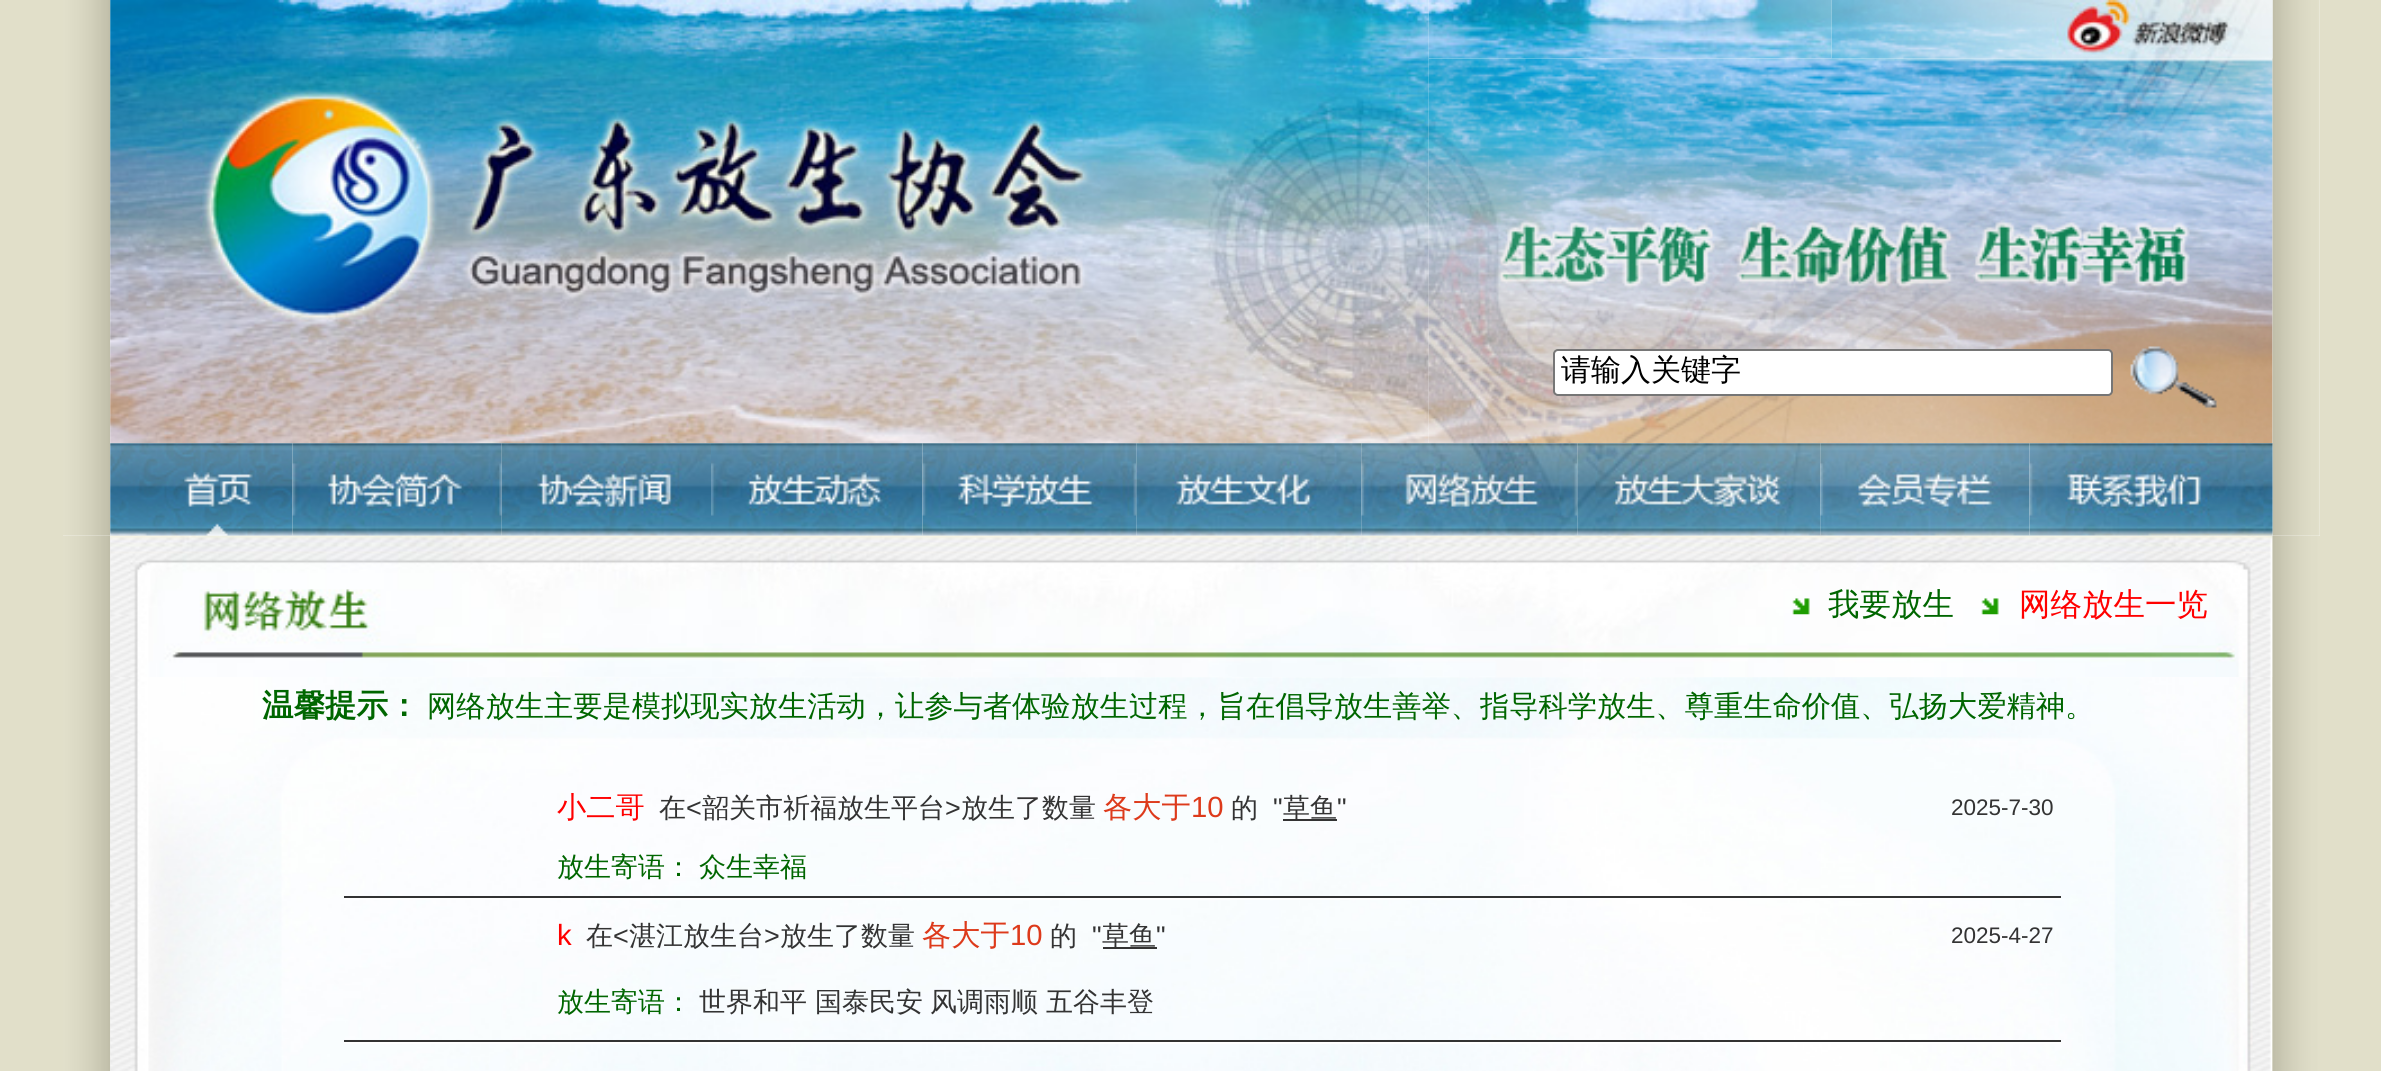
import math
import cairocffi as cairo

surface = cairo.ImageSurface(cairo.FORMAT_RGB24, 2381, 1071)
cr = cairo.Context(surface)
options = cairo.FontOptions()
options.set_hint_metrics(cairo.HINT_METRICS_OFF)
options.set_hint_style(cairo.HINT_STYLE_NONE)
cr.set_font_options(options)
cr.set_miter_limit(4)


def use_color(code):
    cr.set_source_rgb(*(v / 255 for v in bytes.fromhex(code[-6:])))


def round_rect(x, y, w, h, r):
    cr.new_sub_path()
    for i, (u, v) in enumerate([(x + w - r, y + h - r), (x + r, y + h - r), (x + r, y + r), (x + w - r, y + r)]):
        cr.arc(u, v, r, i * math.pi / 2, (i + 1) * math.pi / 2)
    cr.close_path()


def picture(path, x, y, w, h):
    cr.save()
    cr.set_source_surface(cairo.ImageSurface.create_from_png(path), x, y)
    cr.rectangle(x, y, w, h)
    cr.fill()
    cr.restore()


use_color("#e1dfc9")
cr.paint()
use_color("#ffffff")
cr.rectangle(63, 0, 2257, 536)
cr.fill()
picture("img1.png", 63, 0, 48, 536)
picture("img2.png", 110, 0, 1319, 443)
picture("img3.png", 1428, 0, 404, 59)
picture("img6.png", 1428, 58, 845, 385)
picture("img4.png", 1831, 0, 221, 59)
picture("img18.png", 2272, 0, 48, 536)
picture("img5.png", 2052, 0, 221, 59)
round_rect(1554, 350, 558, 45, 4)
cr.fill_preserve()
use_color("#767676")
cr.stroke()
cr.select_font_face("WenQuanYi Zen Hei Medium")
cr.set_font_size(30)
use_color("#000000")
cr.move_to(1561, 380)
cr.show_text("请输入关键字")
picture("img7.png", 2130, 346, 87, 62)
use_color("#ffffff")
cr.rectangle(110, 443, 1, 93)
cr.fill()
picture("img19.png", 63, 535, 48, 536)
picture("img20.png", 110, 535, 2163, 536)
picture("img21.png", 110, 535, 2163, 142)
picture("img8.png", 110, 443, 183, 93)
picture("img9.png", 292, 443, 210, 93)
picture("img10.png", 501, 443, 210, 93)
picture("img11.png", 711, 443, 212, 93)
picture("img12.png", 922, 443, 215, 93)
picture("img13.png", 1136, 443, 226, 93)
picture("img14.png", 1361, 443, 217, 93)
picture("img15.png", 1577, 443, 244, 93)
picture("img16.png", 1820, 443, 210, 93)
picture("img25.png", 2272, 535, 48, 536)
picture("img17.png", 2029, 443, 244, 93)
picture("img22.png", 1792, 598, 18, 17)
cr.set_font_size(31.5)
use_color("#006600")
cr.move_to(1828, 615)
cr.show_text("我要放生")
picture("img23.png", 1981, 598, 18, 17)
use_color("#ff0000")
cr.move_to(2019, 615)
cr.show_text("网络放生一览")
picture("img24.png", 110, 677, 2162, 394)
cr.select_font_face("WenQuanYi Zen Hei", cairo.FONT_SLANT_NORMAL, cairo.FONT_WEIGHT_BOLD)
use_color("#006600")
cr.move_to(262, 716)
cr.show_text("温馨提示：")
cr.select_font_face("WenQuanYi Zen Hei Medium")
cr.set_font_size(29.25)
cr.move_to(427, 716)
cr.show_text("网络放生主要是模拟现实放生活动，让参与者体验放生过程，旨在倡导放生善举、指导科学放生、尊重生命价值、弘扬大爱精神。")
use_color("#333333")
cr.rectangle(344, 896, 1717, 2)
cr.fill()
use_color("#ff0000")
cr.move_to(557, 817)
cr.show_text("小二哥")
cr.set_font_size(27)
use_color("#333333")
cr.move_to(659, 817)
cr.show_text("在")
cr.select_font_face("Liberation Sans")
cr.move_to(686, 817)
cr.show_text("<")
cr.select_font_face("WenQuanYi Zen Hei Medium")
cr.move_to(702, 817)
cr.show_text("韶关市祈福放生平台")
cr.select_font_face("Liberation Sans")
cr.move_to(945, 817)
cr.show_text(">")
cr.select_font_face("WenQuanYi Zen Hei Medium")
cr.move_to(961, 817)
cr.show_text("放生了数量")
cr.set_font_size(29.25)
use_color("#dd3a1b")
cr.move_to(1103, 817)
cr.show_text("各大于")
cr.select_font_face("Liberation Sans")
cr.move_to(1191, 817)
cr.show_text("10")
cr.select_font_face("WenQuanYi Zen Hei Medium")
cr.set_font_size(27)
use_color("#333333")
cr.move_to(1231, 817)
cr.show_text("的")
cr.select_font_face("Liberation Sans")
cr.move_to(1273, 817)
cr.show_text("\"")
cr.rectangle(1283, 819, 54, 2)
cr.fill()
cr.select_font_face("WenQuanYi Zen Hei Medium")
cr.move_to(1283, 817)
cr.show_text("草鱼")
cr.select_font_face("Liberation Sans")
cr.move_to(1337, 817)
cr.show_text("\"")
cr.select_font_face("WenQuanYi Zen Hei Medium")
use_color("#006600")
cr.move_to(557, 876)
cr.show_text("放生寄语：")
cr.move_to(699, 876)
cr.show_text("众生幸福")
cr.select_font_face("Liberation Sans")
cr.set_font_size(22.5)
use_color("#333333")
cr.move_to(1951, 815)
cr.show_text("2025-7-30")
use_color("#ffffff")
cr.rectangle(344, 898, 1717, 2)
cr.fill()
use_color("#333333")
cr.rectangle(344, 1040, 1717, 2)
cr.fill()
cr.set_font_size(29.25)
use_color("#ff0000")
cr.move_to(557, 945)
cr.show_text("k")
cr.select_font_face("WenQuanYi Zen Hei Medium")
cr.set_font_size(27)
use_color("#333333")
cr.move_to(586, 945)
cr.show_text("在")
cr.select_font_face("Liberation Sans")
cr.move_to(613, 945)
cr.show_text("<")
cr.select_font_face("WenQuanYi Zen Hei Medium")
cr.move_to(629, 945)
cr.show_text("湛江放生台")
cr.select_font_face("Liberation Sans")
cr.move_to(764, 945)
cr.show_text(">")
cr.select_font_face("WenQuanYi Zen Hei Medium")
cr.move_to(780, 945)
cr.show_text("放生了数量")
cr.set_font_size(29.25)
use_color("#dd3a1b")
cr.move_to(922, 945)
cr.show_text("各大于")
cr.select_font_face("Liberation Sans")
cr.move_to(1010, 945)
cr.show_text("10")
cr.select_font_face("WenQuanYi Zen Hei Medium")
cr.set_font_size(27)
use_color("#333333")
cr.move_to(1050, 945)
cr.show_text("的")
cr.select_font_face("Liberation Sans")
cr.move_to(1092, 945)
cr.show_text("\"")
cr.rectangle(1103, 947, 54, 2)
cr.fill()
cr.select_font_face("WenQuanYi Zen Hei Medium")
cr.move_to(1102, 945)
cr.show_text("草鱼")
cr.select_font_face("Liberation Sans")
cr.move_to(1156, 945)
cr.show_text("\"")
cr.select_font_face("WenQuanYi Zen Hei Medium")
use_color("#006600")
cr.move_to(557, 1011)
cr.show_text("放生寄语：")
use_color("#333333")
cr.move_to(699, 1011)
cr.show_text("世界和平")
cr.move_to(815, 1011)
cr.show_text("国泰民安")
cr.move_to(930, 1011)
cr.show_text("风调雨顺")
cr.move_to(1046, 1011)
cr.show_text("五谷丰登")
cr.select_font_face("Liberation Sans")
cr.set_font_size(22.5)
cr.move_to(1951, 943)
cr.show_text("2025-4-27")
use_color("#ffffff")
cr.rectangle(344, 1042, 1717, 2)
cr.fill()
surface.write_to_png("result.png")
